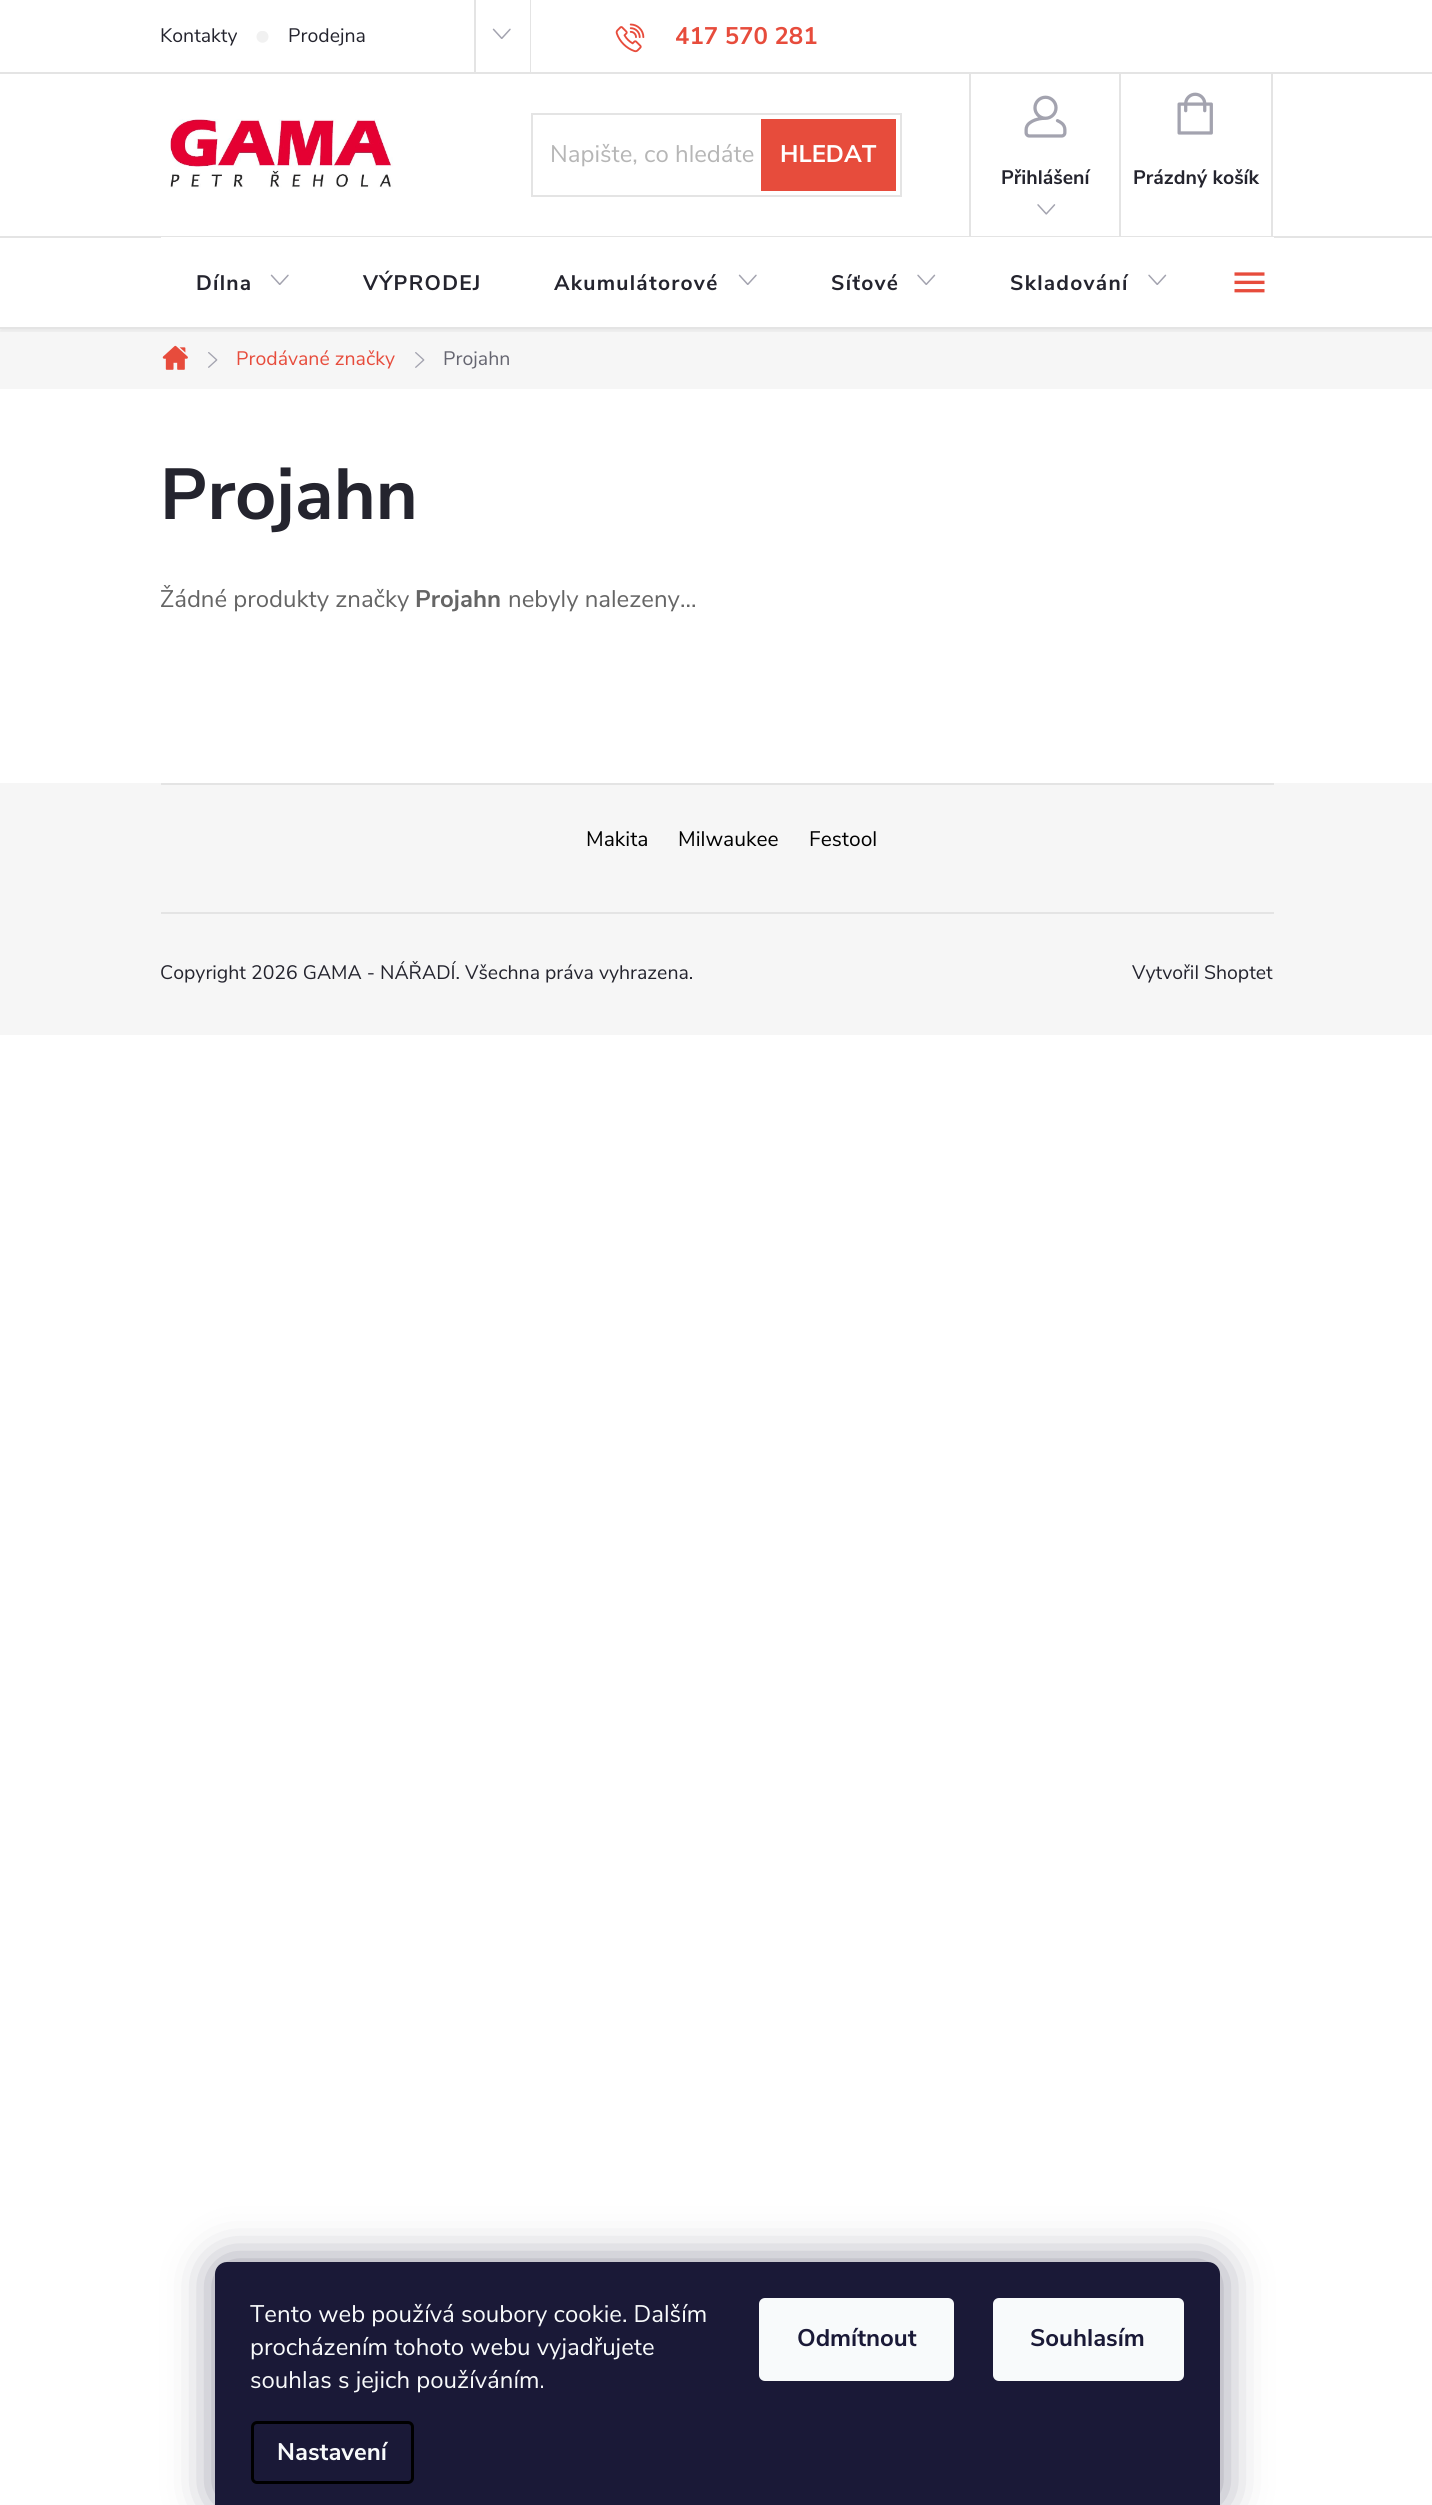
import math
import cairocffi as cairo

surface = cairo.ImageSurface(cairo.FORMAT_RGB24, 1432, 2505)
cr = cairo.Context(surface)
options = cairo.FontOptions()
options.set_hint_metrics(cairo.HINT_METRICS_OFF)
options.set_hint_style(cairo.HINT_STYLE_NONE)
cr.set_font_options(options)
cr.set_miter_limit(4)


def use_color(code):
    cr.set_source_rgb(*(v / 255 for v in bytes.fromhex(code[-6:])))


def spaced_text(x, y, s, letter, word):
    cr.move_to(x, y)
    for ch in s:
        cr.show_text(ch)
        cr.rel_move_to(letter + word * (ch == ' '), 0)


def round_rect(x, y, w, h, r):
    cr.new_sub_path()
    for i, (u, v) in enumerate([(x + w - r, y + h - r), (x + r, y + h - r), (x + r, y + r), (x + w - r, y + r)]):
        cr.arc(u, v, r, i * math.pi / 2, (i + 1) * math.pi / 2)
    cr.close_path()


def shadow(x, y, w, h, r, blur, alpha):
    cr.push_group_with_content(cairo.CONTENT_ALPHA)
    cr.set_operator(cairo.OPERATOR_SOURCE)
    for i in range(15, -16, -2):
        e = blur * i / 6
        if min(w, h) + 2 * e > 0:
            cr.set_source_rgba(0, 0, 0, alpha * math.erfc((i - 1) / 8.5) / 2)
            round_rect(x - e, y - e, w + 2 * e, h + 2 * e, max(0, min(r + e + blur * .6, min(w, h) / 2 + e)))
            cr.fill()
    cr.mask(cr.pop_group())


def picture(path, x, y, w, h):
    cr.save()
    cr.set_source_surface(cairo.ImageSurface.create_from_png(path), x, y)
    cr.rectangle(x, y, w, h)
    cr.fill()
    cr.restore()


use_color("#ffffff")
cr.paint()
use_color("#e4e4e4")
cr.rectangle(0, 72, 1432, 2)
cr.fill()
cr.select_font_face("Nunito Sans")
cr.set_font_size(19.5)
use_color("#24242e")
cr.move_to(160, 42)
cr.show_text("Kontakty")
picture("img1.png", 256, 31, 13, 12)
cr.move_to(288, 42)
cr.show_text("Prodejna")
use_color("#e4e4e4")
cr.rectangle(530, 0, 1, 72)
cr.fill()
cr.rectangle(474, 0, 2, 72)
cr.fill()
picture("img2.png", 492, 28, 19, 11)
picture("img3.png", 615, 23, 30, 30)
cr.select_font_face("Nunito Sans", cairo.FONT_SLANT_NORMAL, cairo.FONT_WEIGHT_BOLD)
cr.set_font_size(24)
use_color("#e74c3c")
cr.move_to(675, 44)
cr.show_text("417 570 281")
picture("img4.png", 170, 119, 223, 69)
cr.rectangle(532, 114, 369, 82)
use_color("#e4e4e4")
cr.stroke()
cr.select_font_face("Nunito Sans")
use_color("#b6b6b6")
cr.move_to(550, 162)
cr.show_text("Napište, co hledáte")
use_color("#e74c3c")
cr.rectangle(761, 119, 135, 72)
cr.fill()
cr.select_font_face("Nunito Sans", cairo.FONT_SLANT_NORMAL, cairo.FONT_WEIGHT_BOLD)
use_color("#ffffff")
cr.move_to(780, 162)
cr.show_text("HLEDAT")
use_color("#e4e4e4")
cr.rectangle(969, 74, 2, 162)
cr.fill()
picture("img5.png", 1024, 95, 43, 43)
cr.set_font_size(19.5)
use_color("#24242e")
cr.move_to(1001, 184)
cr.show_text("Přihlášení")
picture("img6.png", 1037, 204, 19, 11)
use_color("#e4e4e4")
cr.rectangle(1271, 74, 2, 162)
cr.fill()
cr.rectangle(1119, 74, 2, 162)
cr.fill()
picture("img7.png", 1177, 92, 36, 43)
use_color("#24242e")
cr.move_to(1133, 184)
cr.show_text("Prázdný košík")
use_color("#f6f6f6")
cr.rectangle(0, 329, 1432, 60)
cr.fill()
cr.save()
cr.rectangle(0, 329, 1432, 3)
cr.clip()
use_color("#000000")
shadow(0, 239, 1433, 93, 0, 1.5, 0.05)
cr.restore()
use_color("#e4e4e4")
cr.rectangle(0, 236, 1432, 2)
cr.fill()
use_color("#ffffff")
cr.rectangle(161, 237, 1113, 1)
cr.fill()
cr.set_font_size(21)
use_color("#24242e")
spaced_text(196, 290, "Dílna", 1.25, 0)
picture("img2.png", 270, 274, 19, 11)
spaced_text(363, 290, "VÝPRODEJ", 1.25, 0)
spaced_text(554, 290, "Akumulátorové", 1.25, 0)
picture("img2.png", 738, 274, 19, 11)
spaced_text(831, 290, "Síťové", 1.25, 0)
picture("img8.png", 917, 274, 19, 11)
spaced_text(1010, 290, "Skladování", 1.25, 0)
picture("img8.png", 1148, 274, 19, 11)
picture("img9.png", 1234, 272, 31, 21)
use_color("#e4e4e4")
cr.rectangle(0, 327, 1432, 2)
cr.fill()
picture("img10.png", 162, 345, 26, 25)
picture("img11.png", 208, 352, 10, 16)
cr.select_font_face("Nunito Sans")
cr.set_font_size(19.5)
use_color("#e74c3c")
cr.move_to(236, 365)
cr.show_text("Prodávané značky")
picture("img12.png", 415, 352, 10, 16)
use_color("#656570")
cr.move_to(443, 365)
cr.show_text("Projahn")
cr.select_font_face("Nunito Sans", cairo.FONT_SLANT_NORMAL, cairo.FONT_WEIGHT_BOLD)
cr.set_font_size(72)
use_color("#24242e")
cr.move_to(160, 519)
cr.show_text("Projahn")
cr.select_font_face("Nunito Sans")
cr.set_font_size(24)
use_color("#656565")
cr.move_to(160, 607)
cr.show_text("Žádné produkty značky")
cr.select_font_face("Nunito Sans", cairo.FONT_SLANT_NORMAL, cairo.FONT_WEIGHT_BOLD)
cr.move_to(415, 607)
cr.show_text("Projahn")
cr.select_font_face("Nunito Sans")
cr.move_to(508, 607)
cr.show_text("nebyly nalezeny...")
use_color("#f6f6f6")
cr.rectangle(0, 783, 1432, 252)
cr.fill()
use_color("#e4e4e4")
cr.rectangle(161, 783, 1113, 2)
cr.fill()
cr.set_font_size(21)
use_color("#000000")
cr.move_to(586, 846)
cr.show_text("Makita")
cr.move_to(678, 846)
cr.show_text("Milwaukee")
cr.move_to(809, 846)
cr.show_text("Festool")
use_color("#e4e4e4")
cr.rectangle(161, 912, 1113, 2)
cr.fill()
cr.set_font_size(19.5)
use_color("#24242e")
cr.move_to(160, 979)
cr.show_text("Copyright 2026 GAMA - NÁŘADÍ. Všechna práva vyhrazena.")
cr.move_to(1132, 979)
cr.show_text("Vytvořil Shoptet")
use_color("#1b1939")
shadow(215, 2262, 1005, 243, 12, 22.5, 0.5)
use_color("#1a1937")
cr.new_path()
cr.move_to(227, 2262)
cr.line_to(1208, 2262)
cr.curve_to(1214.5, 2262, 1220, 2267.5, 1220, 2274)
cr.line_to(1220, 2505)
cr.line_to(215, 2505)
cr.line_to(215, 2274)
cr.curve_to(215, 2267.5, 220.5, 2262, 227, 2262)
cr.close_path()
cr.fill()
cr.set_font_size(24)
use_color("#f8fafb")
cr.move_to(250, 2322)
cr.show_text("Tento web používá soubory cookie. Dalším")
cr.move_to(250, 2355)
cr.show_text("procházením tohoto webu vyjadřujete")
cr.move_to(250, 2388)
cr.show_text("souhlas s jejich používáním.")
round_rect(252.5, 2422.5, 160, 60, 4.5)
use_color("#000000")
cr.set_line_width(3)
cr.stroke()
cr.select_font_face("Nunito Sans", cairo.FONT_SLANT_NORMAL, cairo.FONT_WEIGHT_BOLD)
use_color("#f8fafb")
cr.move_to(277, 2460)
cr.show_text("Nastavení")
round_rect(759, 2298, 195, 83, 6)
cr.fill()
use_color("#1a1937")
cr.move_to(797, 2346)
cr.show_text("Odmítnout")
use_color("#f8fafb")
round_rect(993, 2298, 191, 83, 6)
cr.fill()
use_color("#1a1937")
cr.move_to(1030, 2346)
cr.show_text("Souhlasím")
surface.write_to_png("result.png")
